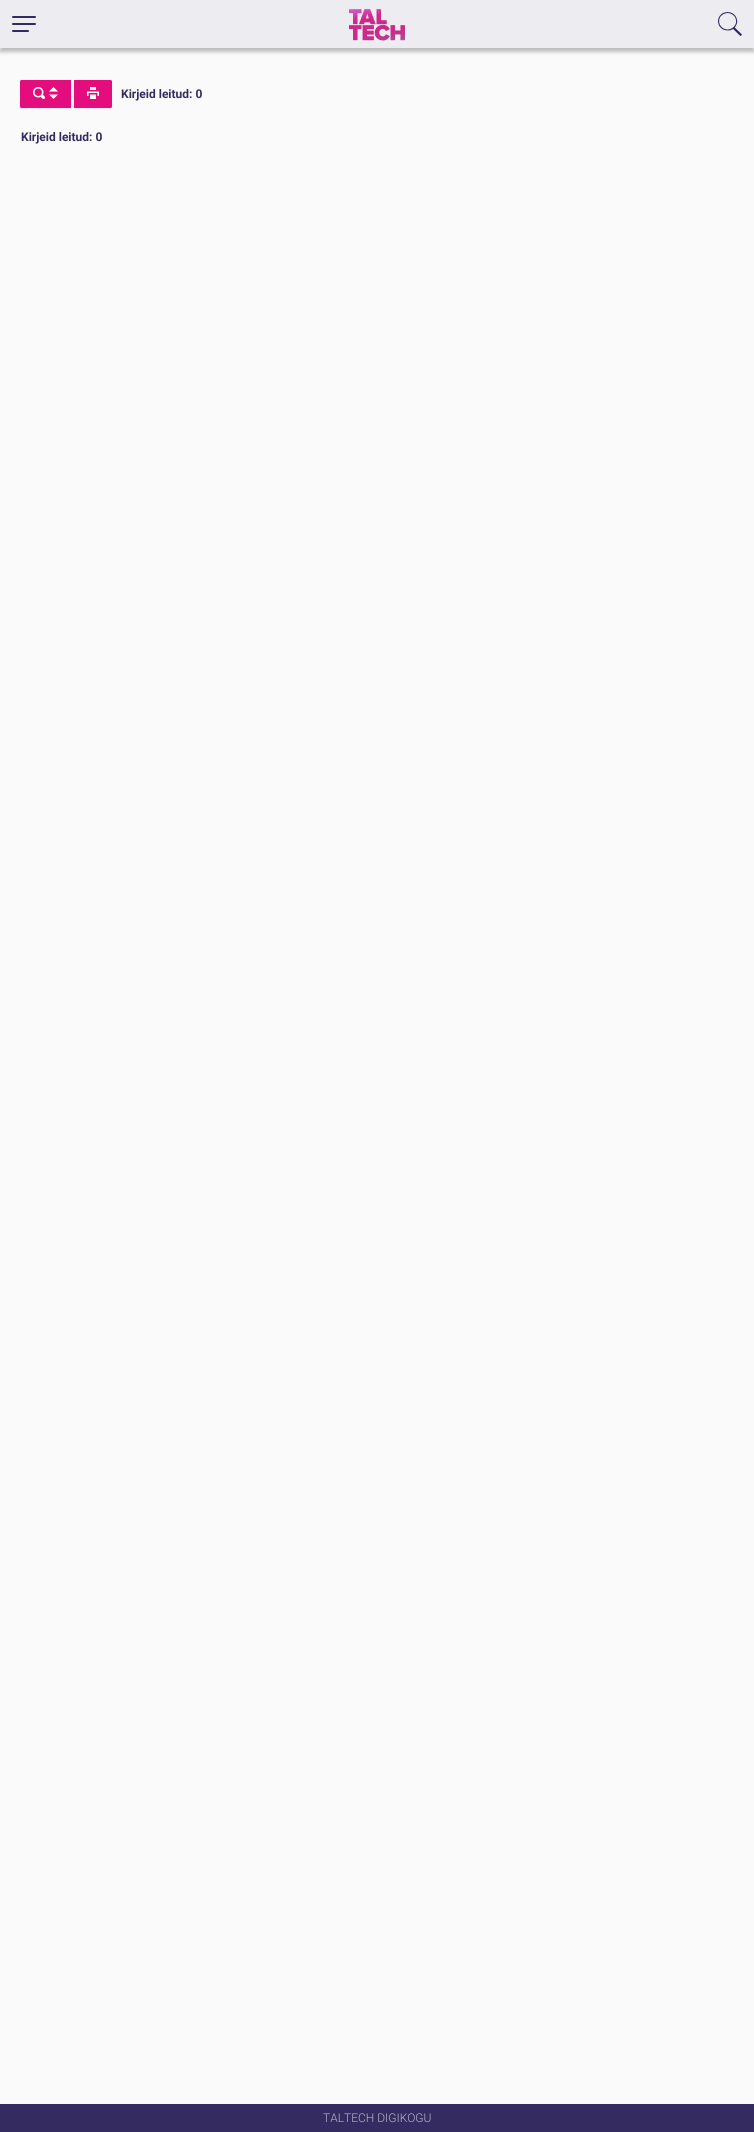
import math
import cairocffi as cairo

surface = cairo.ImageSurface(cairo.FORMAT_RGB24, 754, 2132)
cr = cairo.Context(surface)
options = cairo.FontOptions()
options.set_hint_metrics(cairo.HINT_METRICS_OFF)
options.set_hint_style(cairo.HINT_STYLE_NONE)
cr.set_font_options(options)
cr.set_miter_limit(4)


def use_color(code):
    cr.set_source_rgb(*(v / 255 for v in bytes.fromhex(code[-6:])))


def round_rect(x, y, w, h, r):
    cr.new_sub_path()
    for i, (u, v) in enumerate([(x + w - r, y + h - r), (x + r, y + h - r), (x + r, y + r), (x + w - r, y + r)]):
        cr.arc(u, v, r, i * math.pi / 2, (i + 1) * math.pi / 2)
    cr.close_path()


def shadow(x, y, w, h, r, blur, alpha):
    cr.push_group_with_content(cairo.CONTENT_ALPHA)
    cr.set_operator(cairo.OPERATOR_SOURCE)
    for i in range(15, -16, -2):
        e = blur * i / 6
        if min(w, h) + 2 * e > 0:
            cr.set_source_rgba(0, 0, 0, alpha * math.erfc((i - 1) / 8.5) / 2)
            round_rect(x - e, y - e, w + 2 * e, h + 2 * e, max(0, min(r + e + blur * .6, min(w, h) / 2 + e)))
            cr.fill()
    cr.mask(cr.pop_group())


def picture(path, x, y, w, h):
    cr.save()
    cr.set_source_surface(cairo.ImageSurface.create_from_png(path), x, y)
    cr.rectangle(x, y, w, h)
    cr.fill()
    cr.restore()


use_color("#fbfafb")
cr.paint()
use_color("#000000")
shadow(0, 4, 754, 48, 0, 2, 0.25)
use_color("#ececf1")
cr.rectangle(0, 0, 754, 48)
cr.fill()
use_color("#342c61")
round_rect(12, 23, 24, 2, 1)
cr.fill()
round_rect(12, 16, 24, 2, 1)
cr.fill()
round_rect(12, 30, 17, 2, 1)
cr.fill()
picture("img1.png", 349, 9, 56, 32)
picture("img2.png", 718, 12, 24, 24)
use_color("#000000")
shadow(20, 81, 51, 28, 1.5, 0.5, 0.07)
use_color("#e40d7e")
cr.new_path()
cr.move_to(21.5, 80.5)
cr.line_to(70.5, 80.5)
cr.line_to(70.5, 107.5)
cr.line_to(21.5, 107.5)
cr.curve_to(21, 107.5, 20.5, 107, 20.5, 106.5)
cr.line_to(20.5, 81.5)
cr.curve_to(20.5, 81, 21, 80.5, 21.5, 80.5)
cr.close_path()
cr.fill_preserve()
cr.set_line_width(1)
cr.stroke()
picture("img3.png", 33, 87, 12, 12)
picture("img4.png", 49, 87, 9, 12)
use_color("#000000")
shadow(74, 81, 38, 28, 1.5, 0.5, 0.07)
use_color("#e40d7e")
cr.new_path()
cr.move_to(74.5, 80.5)
cr.line_to(110.5, 80.5)
cr.curve_to(111, 80.5, 111.5, 81, 111.5, 81.5)
cr.line_to(111.5, 106.5)
cr.curve_to(111.5, 107, 111, 107.5, 110.5, 107.5)
cr.line_to(74.5, 107.5)
cr.close_path()
cr.fill_preserve()
cr.stroke()
picture("img5.png", 87, 87, 12, 12)
cr.select_font_face("Roboto", cairo.FONT_SLANT_NORMAL, cairo.FONT_WEIGHT_BOLD)
cr.set_font_size(12)
use_color("#342c61")
cr.move_to(121, 98)
cr.show_text("Kirjeid leitud: 0")
cr.move_to(21, 141)
cr.show_text("Kirjeid leitud: 0")
cr.rectangle(0, 2104, 754, 28)
cr.fill()
cr.select_font_face("Roboto Light")
use_color("#b8b5c8")
cr.move_to(323, 2122)
cr.show_text("TALTECH DIGIKOGU")
surface.write_to_png("result.png")
